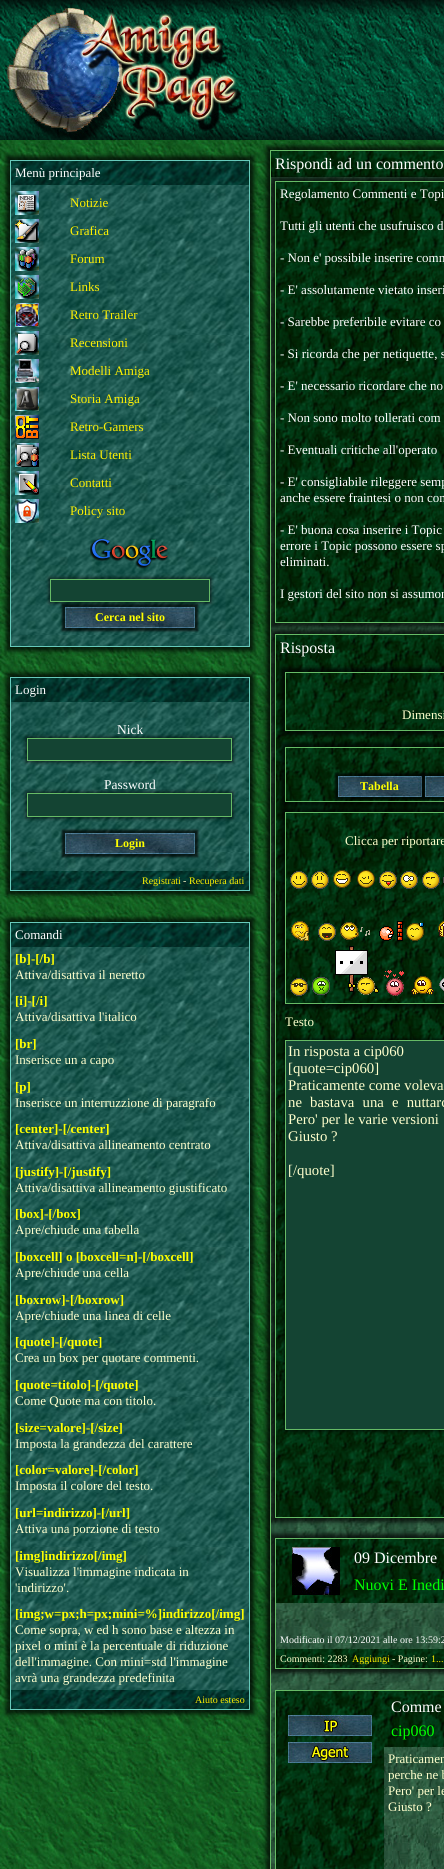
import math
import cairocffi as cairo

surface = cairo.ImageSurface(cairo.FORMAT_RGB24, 444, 1869)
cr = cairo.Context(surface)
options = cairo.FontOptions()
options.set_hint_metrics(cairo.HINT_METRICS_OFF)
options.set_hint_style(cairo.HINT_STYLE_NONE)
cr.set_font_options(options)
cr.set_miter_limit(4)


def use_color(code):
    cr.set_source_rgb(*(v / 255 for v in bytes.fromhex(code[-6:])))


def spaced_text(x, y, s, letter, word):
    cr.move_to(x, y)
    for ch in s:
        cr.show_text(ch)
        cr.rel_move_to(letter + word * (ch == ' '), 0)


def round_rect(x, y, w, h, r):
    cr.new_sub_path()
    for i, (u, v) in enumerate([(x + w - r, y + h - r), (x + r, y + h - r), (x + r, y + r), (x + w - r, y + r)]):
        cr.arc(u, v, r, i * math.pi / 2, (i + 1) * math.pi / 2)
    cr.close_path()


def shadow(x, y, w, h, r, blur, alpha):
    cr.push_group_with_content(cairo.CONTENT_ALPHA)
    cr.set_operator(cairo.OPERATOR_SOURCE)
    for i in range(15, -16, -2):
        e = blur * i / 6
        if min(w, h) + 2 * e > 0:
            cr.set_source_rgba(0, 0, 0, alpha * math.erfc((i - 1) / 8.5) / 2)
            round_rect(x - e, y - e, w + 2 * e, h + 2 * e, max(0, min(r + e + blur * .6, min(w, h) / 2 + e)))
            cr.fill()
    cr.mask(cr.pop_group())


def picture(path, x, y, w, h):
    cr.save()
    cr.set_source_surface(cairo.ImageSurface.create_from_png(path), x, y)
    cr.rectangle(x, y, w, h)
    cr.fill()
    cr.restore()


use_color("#ffffff")
cr.paint()
picture("img1.png", 0, 140, 444, 1729)
picture("img2.png", 250, 0, 194, 140)
picture("img3.png", 0, 0, 250, 140)
use_color("#000000")
shadow(6, 156, 248, 495, 0, 2, 0.7)
use_color("#66cabb")
cr.rectangle(10, 160, 240, 1)
cr.fill()
cr.rectangle(249, 160, 1, 487)
cr.fill()
cr.rectangle(10, 646, 240, 1)
cr.fill()
cr.rectangle(10, 160, 1, 487)
cr.fill()
picture("img4.png", 11, 161, 238, 24)
cr.select_font_face("Liberation Serif")
cr.set_font_size(13)
use_color("#ffffff")
cr.move_to(15, 177)
cr.show_text("Menù principale")
picture("img5.png", 11, 185, 238, 461)
picture("img6.png", 15, 191, 24, 24)
use_color("#fff000")
cr.move_to(70, 207)
cr.show_text("Notizie")
picture("img7.png", 15, 219, 24, 24)
cr.move_to(70, 235)
cr.show_text("Grafica")
picture("img8.png", 15, 247, 24, 24)
cr.move_to(70, 263)
cr.show_text("Forum")
picture("img9.png", 15, 275, 24, 24)
cr.move_to(70, 291)
cr.show_text("Links")
picture("img10.png", 15, 303, 24, 24)
cr.move_to(70, 319)
cr.show_text("Retro Trailer")
picture("img11.png", 15, 331, 24, 24)
cr.move_to(70, 347)
cr.show_text("Recensioni")
picture("img12.png", 15, 359, 24, 24)
cr.move_to(70, 375)
cr.show_text("Modelli Amiga")
picture("img13.png", 15, 387, 24, 24)
cr.move_to(70, 403)
cr.show_text("Storia Amiga")
picture("img14.png", 15, 415, 24, 24)
cr.move_to(70, 431)
cr.show_text("Retro-Gamers")
picture("img15.png", 15, 443, 24, 24)
cr.move_to(70, 459)
cr.show_text("Lista Utenti")
picture("img16.png", 15, 471, 24, 24)
cr.move_to(70, 487)
cr.show_text("Contatti")
picture("img17.png", 15, 499, 24, 24)
cr.move_to(70, 515)
cr.show_text("Policy sito")
picture("img18.png", 90, 538, 78, 31)
use_color("#000000")
shadow(49, 578, 162, 25, 0, 2, 0.7)
use_color("#144433")
cr.rectangle(50.5, 579.5, 159, 22)
cr.fill_preserve()
use_color("#66bb66")
cr.set_line_width(1)
cr.stroke()
use_color("#000000")
shadow(62, 604, 136, 27, 0, 1, 0.7)
picture("img19.png", 65, 607, 130, 21)
cr.select_font_face("Liberation Serif", cairo.FONT_SLANT_NORMAL, cairo.FONT_WEIGHT_BOLD)
cr.set_font_size(12)
use_color("#ffff00")
cr.move_to(95, 621)
cr.show_text("Cerca nel sito")
use_color("#000000")
shadow(6, 673, 248, 222, 0, 2, 0.7)
use_color("#66cabb")
cr.rectangle(10, 677, 240, 1)
cr.fill()
cr.rectangle(249, 677, 1, 214)
cr.fill()
cr.rectangle(10, 890, 240, 1)
cr.fill()
cr.rectangle(10, 677, 1, 214)
cr.fill()
picture("img4.png", 11, 678, 238, 24)
cr.select_font_face("Liberation Serif")
cr.set_font_size(13)
use_color("#ffffff")
cr.move_to(15, 694)
cr.show_text("Login")
picture("img20.png", 11, 702, 238, 169)
cr.set_font_size(13.5)
cr.move_to(117, 734)
cr.show_text("Nick")
use_color("#000000")
shadow(26, 737, 207, 25, 0, 2, 0.7)
use_color("#144433")
cr.rectangle(27.5, 738.5, 204, 22)
cr.fill_preserve()
use_color("#66bb66")
cr.stroke()
use_color("#ffffff")
cr.move_to(104, 789)
cr.show_text("Password")
use_color("#000000")
shadow(26, 792, 207, 26, 0, 2, 0.7)
use_color("#144433")
cr.rectangle(27.5, 793.5, 204, 23)
cr.fill_preserve()
use_color("#66bb66")
cr.stroke()
use_color("#000000")
shadow(62, 830, 136, 27, 0, 1, 0.7)
picture("img19.png", 65, 833, 130, 21)
cr.select_font_face("Liberation Serif", cairo.FONT_SLANT_NORMAL, cairo.FONT_WEIGHT_BOLD)
cr.set_font_size(12)
use_color("#ffff00")
cr.move_to(115, 847)
cr.show_text("Login")
picture("img21.png", 11, 871, 238, 19)
cr.select_font_face("Liberation Serif")
cr.set_font_size(10)
use_color("#fff000")
cr.move_to(142, 884)
cr.show_text("Registrati")
use_color("#ffffcc")
cr.move_to(183, 884)
cr.show_text("-")
use_color("#fff000")
cr.move_to(189, 884)
cr.show_text("Recupera dati")
use_color("#000000")
shadow(6, 918, 248, 796, 0, 2, 0.7)
use_color("#66cabb")
cr.rectangle(10, 922, 240, 1)
cr.fill()
cr.rectangle(249, 922, 1, 788)
cr.fill()
cr.rectangle(10, 1709, 240, 1)
cr.fill()
cr.rectangle(10, 922, 1, 788)
cr.fill()
picture("img22.png", 11, 923, 238, 24)
cr.set_font_size(13)
use_color("#ffffff")
cr.move_to(15, 939)
cr.show_text("Comandi")
picture("img23.png", 11, 947, 238, 743)
cr.select_font_face("Liberation Serif", cairo.FONT_SLANT_NORMAL, cairo.FONT_WEIGHT_BOLD)
use_color("#ffff00")
cr.move_to(15, 963)
cr.show_text("[b]-[/b]")
cr.select_font_face("Liberation Serif")
use_color("#ffffcc")
cr.move_to(15, 979)
cr.show_text("Attiva/disattiva il neretto")
cr.select_font_face("Liberation Serif", cairo.FONT_SLANT_NORMAL, cairo.FONT_WEIGHT_BOLD)
use_color("#ffff00")
cr.move_to(15, 1005)
cr.show_text("[i]-[/i]")
cr.select_font_face("Liberation Serif")
use_color("#ffffcc")
cr.move_to(15, 1021)
cr.show_text("Attiva/disattiva l'italico")
cr.select_font_face("Liberation Serif", cairo.FONT_SLANT_NORMAL, cairo.FONT_WEIGHT_BOLD)
use_color("#ffff00")
cr.move_to(15, 1048)
cr.show_text("[br]")
cr.select_font_face("Liberation Serif")
use_color("#ffffcc")
cr.move_to(15, 1064)
cr.show_text("Inserisce un a capo")
cr.select_font_face("Liberation Serif", cairo.FONT_SLANT_NORMAL, cairo.FONT_WEIGHT_BOLD)
use_color("#ffff00")
cr.move_to(15, 1091)
cr.show_text("[p]")
cr.select_font_face("Liberation Serif")
use_color("#ffffcc")
cr.move_to(15, 1107)
cr.show_text("Inserisce un interruzzione di paragrafo")
cr.select_font_face("Liberation Serif", cairo.FONT_SLANT_NORMAL, cairo.FONT_WEIGHT_BOLD)
use_color("#ffff00")
cr.move_to(15, 1133)
cr.show_text("[center]-[/center]")
cr.select_font_face("Liberation Serif")
use_color("#ffffcc")
cr.move_to(15, 1149)
cr.show_text("Attiva/disattiva allineamento centrato")
cr.select_font_face("Liberation Serif", cairo.FONT_SLANT_NORMAL, cairo.FONT_WEIGHT_BOLD)
use_color("#ffff00")
cr.move_to(15, 1176)
cr.show_text("[justify]-[/justify]")
cr.select_font_face("Liberation Serif")
use_color("#ffffcc")
cr.move_to(15, 1192)
cr.show_text("Attiva/disattiva allineamento giustificato")
cr.select_font_face("Liberation Serif", cairo.FONT_SLANT_NORMAL, cairo.FONT_WEIGHT_BOLD)
use_color("#ffff00")
cr.move_to(15, 1218)
cr.show_text("[box]-[/box]")
cr.select_font_face("Liberation Serif")
use_color("#ffffcc")
cr.move_to(15, 1234)
cr.show_text("Apre/chiude una tabella")
cr.select_font_face("Liberation Serif", cairo.FONT_SLANT_NORMAL, cairo.FONT_WEIGHT_BOLD)
use_color("#ffff00")
cr.move_to(15, 1261)
cr.show_text("[boxcell] o [boxcell=n]-[/boxcell]")
cr.select_font_face("Liberation Serif")
use_color("#ffffcc")
cr.move_to(15, 1277)
cr.show_text("Apre/chiude una cella")
cr.select_font_face("Liberation Serif", cairo.FONT_SLANT_NORMAL, cairo.FONT_WEIGHT_BOLD)
use_color("#ffff00")
cr.move_to(15, 1304)
cr.show_text("[boxrow]-[/boxrow]")
cr.select_font_face("Liberation Serif")
use_color("#ffffcc")
cr.move_to(15, 1320)
cr.show_text("Apre/chiude una linea di celle")
cr.select_font_face("Liberation Serif", cairo.FONT_SLANT_NORMAL, cairo.FONT_WEIGHT_BOLD)
use_color("#ffff00")
cr.move_to(15, 1346)
cr.show_text("[quote]-[/quote]")
cr.select_font_face("Liberation Serif")
use_color("#ffffcc")
cr.move_to(15, 1362)
cr.show_text("Crea un box per quotare commenti.")
cr.select_font_face("Liberation Serif", cairo.FONT_SLANT_NORMAL, cairo.FONT_WEIGHT_BOLD)
use_color("#ffff00")
cr.move_to(15, 1389)
cr.show_text("[quote=titolo]-[/quote]")
cr.select_font_face("Liberation Serif")
use_color("#ffffcc")
cr.move_to(15, 1405)
cr.show_text("Come Quote ma con titolo.")
cr.select_font_face("Liberation Serif", cairo.FONT_SLANT_NORMAL, cairo.FONT_WEIGHT_BOLD)
use_color("#ffff00")
cr.move_to(15, 1432)
cr.show_text("[size=valore]-[/size]")
cr.select_font_face("Liberation Serif")
use_color("#ffffcc")
cr.move_to(15, 1448)
cr.show_text("Imposta la grandezza del carattere")
cr.select_font_face("Liberation Serif", cairo.FONT_SLANT_NORMAL, cairo.FONT_WEIGHT_BOLD)
use_color("#ffff00")
cr.move_to(15, 1474)
cr.show_text("[color=valore]-[/color]")
cr.select_font_face("Liberation Serif")
use_color("#ffffcc")
cr.move_to(15, 1490)
cr.show_text("Imposta il colore del testo.")
cr.select_font_face("Liberation Serif", cairo.FONT_SLANT_NORMAL, cairo.FONT_WEIGHT_BOLD)
use_color("#ffff00")
cr.move_to(15, 1517)
cr.show_text("[url=indirizzo]-[/url]")
cr.select_font_face("Liberation Serif")
use_color("#ffffcc")
cr.move_to(15, 1533)
cr.show_text("Attiva una porzione di testo")
cr.select_font_face("Liberation Serif", cairo.FONT_SLANT_NORMAL, cairo.FONT_WEIGHT_BOLD)
use_color("#ffff00")
cr.move_to(15, 1560)
cr.show_text("[img]indirizzo[/img]")
cr.select_font_face("Liberation Serif")
use_color("#ffffcc")
cr.move_to(15, 1576)
cr.show_text("Visualizza l'immagine indicata in")
cr.move_to(15, 1592)
cr.show_text("'indirizzo'.")
cr.select_font_face("Liberation Serif", cairo.FONT_SLANT_NORMAL, cairo.FONT_WEIGHT_BOLD)
use_color("#ffff00")
cr.move_to(15, 1618)
cr.show_text("[img;w=px;h=px;mini=%]indirizzo[/img]")
cr.select_font_face("Liberation Serif")
use_color("#ffffcc")
cr.move_to(15, 1634)
cr.show_text("Come sopra, w ed h sono base e altezza in")
cr.move_to(15, 1650)
cr.show_text("pixel o mini è la percentuale di riduzione")
cr.move_to(15, 1666)
cr.show_text("dell'immagine. Con mini=std l'immagine")
cr.move_to(15, 1682)
cr.show_text("avrà una grandezza predefinita")
picture("img21.png", 11, 1690, 238, 19)
cr.set_font_size(10)
use_color("#fff000")
cr.move_to(195, 1703)
cr.show_text("Aiuto esteso")
use_color("#000000")
shadow(266, 146, 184, 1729, 0, 2, 0.7)
use_color("#66bb66")
cr.rectangle(270, 150, 174, 1)
cr.fill()
picture("img24.png", 271, 151, 173, 26)
picture("img25.png", 271, 177, 173, 1692)
use_color("#000000")
shadow(271, 177, 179, 450, 0, 2, 0.7)
shadow(271, 630, 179, 892, 0, 2, 0.7)
shadow(271, 1534, 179, 139, 0, 2, 0.7)
use_color("#66bb66")
cr.rectangle(270, 150, 1, 1719)
cr.fill()
cr.set_font_size(16)
use_color("#ffffff")
cr.move_to(275, 169)
cr.show_text("Rispondi ad un commento")
use_color("#66bb66")
cr.rectangle(275, 181, 169, 1)
cr.fill()
cr.rectangle(275, 622, 169, 1)
cr.fill()
cr.rectangle(275, 181, 1, 442)
cr.fill()
picture("img26.png", 276, 182, 168, 440)
cr.set_font_size(13)
use_color("#ffffff")
cr.move_to(280, 198)
cr.show_text("Regolamento Commenti e Topi")
cr.move_to(280, 230)
cr.show_text("Tutti gli utenti che usufruisco d")
cr.move_to(280, 262)
cr.show_text("- Non e' possibile inserire comm")
cr.move_to(280, 294)
cr.show_text("- E' assolutamente vietato inseri")
cr.move_to(280, 326)
cr.show_text("- Sarebbe preferibile evitare co")
cr.move_to(280, 358)
cr.show_text("- Si ricorda che per netiquette, s")
cr.move_to(280, 390)
cr.show_text("- E' necessario ricordare che no")
cr.move_to(280, 422)
cr.show_text("- Non sono molto tollerati com")
cr.move_to(280, 454)
cr.show_text("- Eventuali critiche all'operato")
cr.move_to(280, 486)
cr.show_text("- E' consigliabile rileggere semp")
cr.move_to(280, 502)
cr.show_text("anche essere fraintesi o non com")
cr.move_to(280, 534)
cr.show_text("- E' buona cosa inserire i Topic")
cr.move_to(280, 550)
cr.show_text("errore i Topic possono essere sp")
cr.move_to(280, 566)
cr.show_text("eliminati.")
cr.move_to(280, 598)
cr.show_text("I gestori del sito non si assumon")
use_color("#66bb66")
cr.rectangle(275, 634, 169, 1)
cr.fill()
cr.rectangle(275, 1517, 169, 1)
cr.fill()
picture("img27.png", 276, 635, 168, 882)
cr.save()
cr.set_fill_rule(cairo.FILL_RULE_EVEN_ODD)
cr.new_path()
cr.move_to(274, 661)
cr.line_to(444, 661)
cr.line_to(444, 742)
cr.line_to(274, 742)
cr.close_path()
cr.move_to(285, 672)
cr.line_to(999, 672)
cr.line_to(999, 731)
cr.line_to(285, 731)
cr.close_path()
cr.clip()
use_color("#000000")
shadow(281, 668, 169, 67, 0, 2, 0.7)
cr.restore()
cr.save()
cr.set_fill_rule(cairo.FILL_RULE_EVEN_ODD)
cr.new_path()
cr.move_to(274, 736)
cr.line_to(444, 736)
cr.line_to(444, 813)
cr.line_to(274, 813)
cr.close_path()
cr.move_to(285, 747)
cr.line_to(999, 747)
cr.line_to(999, 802)
cr.line_to(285, 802)
cr.close_path()
cr.clip()
use_color("#000000")
shadow(281, 743, 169, 63, 0, 2, 0.7)
cr.restore()
cr.rectangle(285, 801, 159, 1)
cr.fill()
cr.rectangle(285, 747, 159, 1)
cr.fill()
cr.rectangle(285, 747, 1, 55)
cr.fill()
use_color("#000000")
shadow(281, 808, 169, 200, 0, 2, 0.7)
use_color("#66bb66")
cr.rectangle(275, 634, 1, 884)
cr.fill()
cr.set_font_size(16)
use_color("#ffffff")
cr.move_to(280, 653)
cr.show_text("Risposta")
use_color("#66bb66")
cr.rectangle(285, 672, 159, 1)
cr.fill()
cr.rectangle(285, 730, 159, 1)
cr.fill()
cr.rectangle(285, 672, 1, 59)
cr.fill()
cr.set_font_size(13)
use_color("#ffffcc")
cr.move_to(402, 719)
cr.show_text("Dimensi")
use_color("#000000")
shadow(335, 773, 90, 27, 0, 1, 0.7)
picture("img28.png", 338, 776, 84, 21)
cr.select_font_face("Liberation Serif", cairo.FONT_SLANT_NORMAL, cairo.FONT_WEIGHT_BOLD)
cr.set_font_size(12)
use_color("#ffff00")
cr.move_to(360, 790)
cr.show_text("Tabella")
use_color("#000000")
shadow(422, 773, 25, 27, 0, 1, 0.7)
picture("img29.png", 425, 776, 19, 21)
use_color("#66bb66")
cr.rectangle(285, 812, 159, 1)
cr.fill()
cr.rectangle(285, 1003, 159, 1)
cr.fill()
cr.rectangle(285, 812, 1, 192)
cr.fill()
picture("img30.png", 286, 813, 158, 190)
cr.select_font_face("Liberation Serif")
cr.set_font_size(13)
use_color("#ffffcc")
cr.move_to(345, 845)
cr.show_text("Clicca per riportare")
picture("img31.png", 290, 871, 18, 18)
picture("img32.png", 311, 871, 18, 18)
picture("img33.png", 333, 870, 18, 18)
picture("img34.png", 357, 870, 18, 18)
picture("img35.png", 379, 871, 18, 18)
picture("img36.png", 400, 871, 18, 18)
picture("img37.png", 422, 871, 18, 18)
use_color("#4b4b4b")
cr.rectangle(443, 877, 1, 6)
cr.fill()
picture("img38.png", 291, 921, 18, 20)
picture("img39.png", 318, 923, 18, 18)
picture("img40.png", 340, 922, 30, 18)
picture("img41.png", 379, 921, 24, 20)
picture("img42.png", 406, 923, 18, 18)
picture("img43.png", 438, 921, 6, 16)
picture("img44.png", 290, 978, 18, 18)
picture("img45.png", 312, 977, 18, 18)
picture("img46.png", 335, 946, 44, 49)
picture("img47.png", 384, 970, 20, 26)
picture("img48.png", 411, 976, 23, 19)
picture("img49.png", 439, 978, 5, 13)
use_color("#ffffcc")
cr.move_to(285, 1026)
cr.show_text("Testo")
use_color("#000000")
shadow(284, 1039, 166, 392, 0, 2, 0.7)
use_color("#144433")
cr.rectangle(285.5, 1040.5, 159, 389)
cr.fill_preserve()
use_color("#66bb66")
cr.stroke()
cr.set_font_size(14.75)
use_color("#ffffcc")
cr.move_to(288, 1056)
cr.show_text("In risposta a cip060")
cr.move_to(288, 1073)
cr.show_text("[quote=cip060]")
cr.move_to(288, 1090)
cr.show_text("Praticamente come voleva")
spaced_text(288, 1107, "ne bastava una e nuttarc", 0, 4.5)
cr.move_to(288, 1124)
cr.show_text("Pero' per le varie versioni")
cr.move_to(288, 1141)
cr.show_text("Giusto ?")
cr.move_to(288, 1175)
cr.show_text("[/quote]")
use_color("#66bb66")
cr.rectangle(275, 1538, 169, 1)
cr.fill()
cr.rectangle(275, 1668, 169, 1)
cr.fill()
cr.rectangle(275, 1538, 1, 131)
cr.fill()
picture("img50.png", 276, 1539, 168, 64)
picture("img51.png", 292, 1547, 48, 48)
cr.set_font_size(16)
use_color("#ffffff")
cr.move_to(354, 1563)
cr.show_text("09 Dicembre")
use_color("#00ff00")
cr.move_to(354, 1590)
cr.show_text("Nuovi E Inedi")
picture("img52.png", 276, 1603, 168, 46)
cr.set_font_size(10)
use_color("#ffffff")
cr.move_to(280, 1643)
cr.show_text("Modificato il 07/12/2021 alle ore 13:59:2")
picture("img53.png", 276, 1649, 168, 19)
use_color("#ffffcc")
cr.move_to(280, 1662)
cr.show_text("Commenti: 2283")
use_color("#fff000")
cr.move_to(352, 1662)
cr.show_text("Aggiungi")
use_color("#ffffcc")
cr.move_to(392, 1662)
cr.show_text("- Pagine:")
use_color("#fff000")
cr.move_to(431, 1662)
cr.show_text("1...")
picture("img54.png", 276, 1691, 168, 178)
use_color("#66bb66")
cr.rectangle(275, 1690, 169, 1)
cr.fill()
cr.rectangle(275, 1690, 1, 179)
cr.fill()
picture("img55.png", 288, 1715, 84, 21)
picture("img56.png", 288, 1742, 84, 21)
cr.set_font_size(16)
use_color("#ffffff")
cr.move_to(391, 1712)
cr.show_text("Comme")
use_color("#00ff00")
cr.move_to(391, 1736)
cr.show_text("cip060")
picture("img57.png", 384, 1747, 60, 72)
cr.set_font_size(13)
use_color("#ffffcc")
cr.move_to(388, 1763)
cr.show_text("Praticamen")
cr.move_to(388, 1779)
cr.show_text("perche ne b")
cr.move_to(388, 1795)
cr.show_text("Pero' per le")
cr.move_to(388, 1811)
cr.show_text("Giusto ?")
picture("img58.png", 384, 1819, 60, 50)
surface.write_to_png("result.png")
